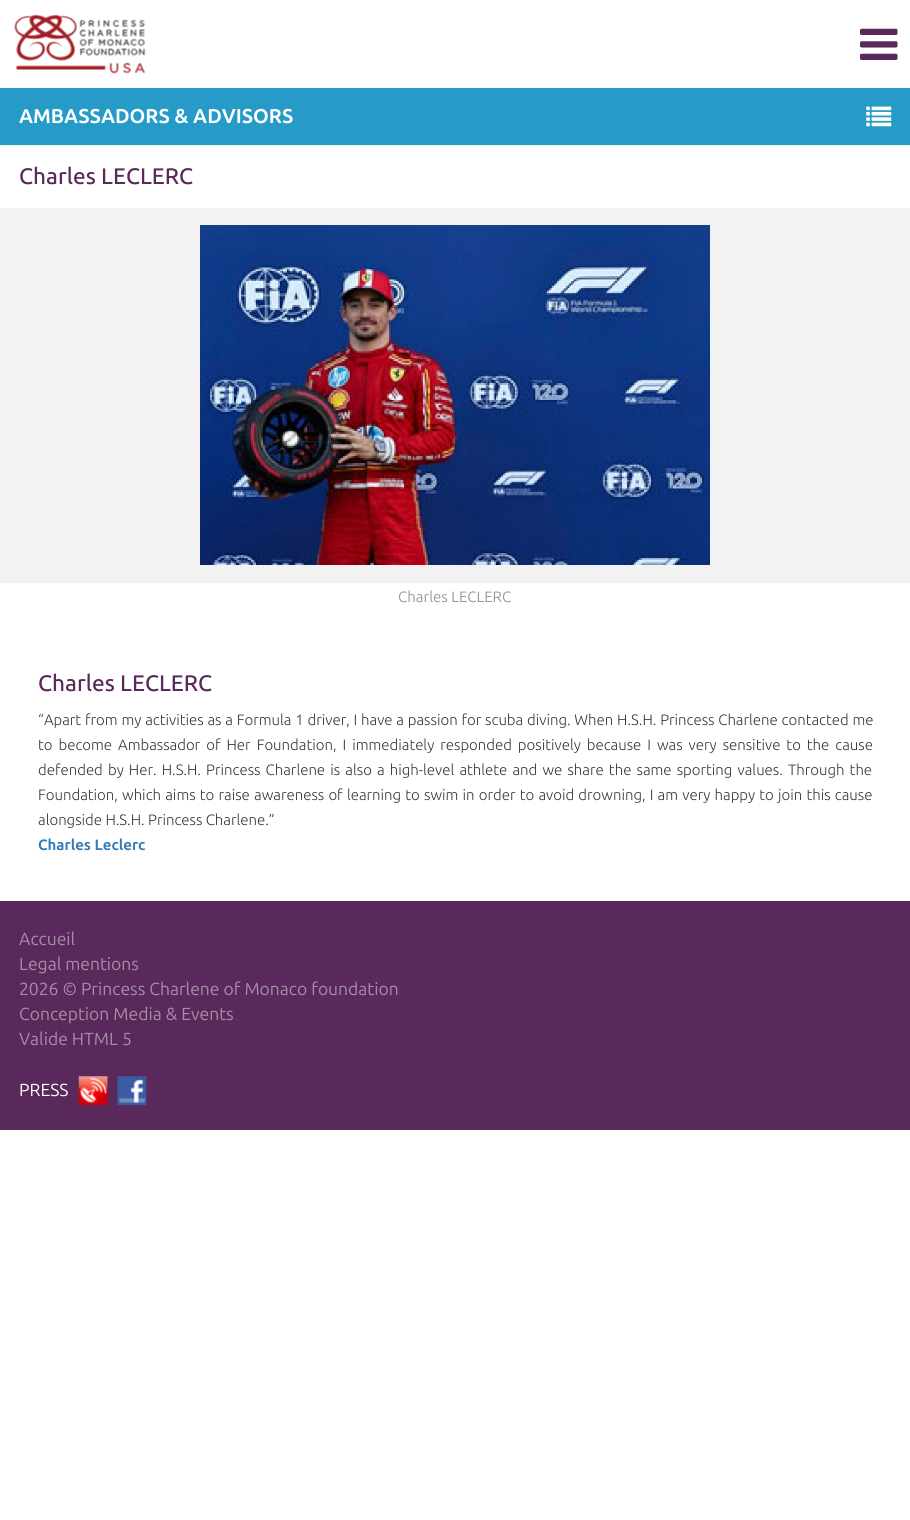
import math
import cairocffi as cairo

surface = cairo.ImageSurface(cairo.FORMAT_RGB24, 910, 1520)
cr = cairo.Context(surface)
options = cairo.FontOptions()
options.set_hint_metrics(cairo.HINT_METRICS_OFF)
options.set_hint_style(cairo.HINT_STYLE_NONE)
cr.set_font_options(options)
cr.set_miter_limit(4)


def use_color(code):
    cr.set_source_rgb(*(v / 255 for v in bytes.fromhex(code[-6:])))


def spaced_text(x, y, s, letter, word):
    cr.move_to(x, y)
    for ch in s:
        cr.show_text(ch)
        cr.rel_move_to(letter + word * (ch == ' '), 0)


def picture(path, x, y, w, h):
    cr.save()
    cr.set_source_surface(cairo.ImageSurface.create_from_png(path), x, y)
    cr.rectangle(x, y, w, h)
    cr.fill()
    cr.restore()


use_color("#ffffff")
cr.paint()
picture("img1.png", 14, 14, 132, 60)
picture("img2.png", 860, 28, 38, 32)
use_color("#279bc8")
cr.rectangle(0, 88, 910, 57)
cr.fill()
cr.select_font_face("Ubuntu", cairo.FONT_SLANT_NORMAL, cairo.FONT_WEIGHT_BOLD)
cr.set_font_size(20)
use_color("#ffffff")
cr.move_to(19, 123)
cr.show_text("AMBASSADORS & ADVISORS")
picture("img3.png", 866, 106, 26, 21)
use_color("#eeeeee")
cr.rectangle(0, 145, 910, 1)
cr.fill()
cr.select_font_face("Ubuntu Medium")
cr.set_font_size(22.5)
use_color("#58295a")
cr.move_to(19, 184)
cr.show_text("Charles LECLERC")
use_color("#f2f2f2")
cr.rectangle(0, 208, 910, 375)
cr.fill()
picture("img4.png", 200, 225, 510, 340)
cr.select_font_face("Ubuntu")
cr.set_font_size(15)
use_color("#999999")
cr.move_to(398, 602)
cr.show_text("Charles LECLERC")
cr.select_font_face("Ubuntu Medium")
cr.set_font_size(22.5)
use_color("#58295a")
cr.move_to(38, 691)
cr.show_text("Charles LECLERC")
cr.select_font_face("Ubuntu Light")
cr.set_font_size(15)
use_color("#333333")
spaced_text(38, 725, "“Apart from my activities as a Formula 1 driver, I have a passion for scuba diving. When H.S.H. Princess Charlene contacted me", 0, 0.4)
spaced_text(38, 750, "to become Ambassador of Her Foundation, I immediately responded positively because I was very sensitive to the cause", 0, 2.6)
spaced_text(38, 775, "defended by Her. H.S.H. Princess Charlene is also a high-level athlete and we share the same sporting values. Through the", 0, 1.75)
spaced_text(38, 800, "Foundation, which aims to raise awareness of learning to swim in order to avoid drowning, I am very happy to join this cause", 0, 0.8)
cr.move_to(38, 825)
cr.show_text("alongside H.S.H. Princess Charlene.”")
cr.select_font_face("Ubuntu", cairo.FONT_SLANT_NORMAL, cairo.FONT_WEIGHT_BOLD)
use_color("#337ab7")
cr.move_to(38, 850)
cr.show_text("Charles Leclerc")
use_color("#58295a")
cr.rectangle(0, 901, 910, 229)
cr.fill()
cr.select_font_face("Ubuntu")
cr.set_font_size(17.5)
use_color("#a78da7")
cr.move_to(19, 945)
cr.show_text("Accueil")
cr.move_to(19, 970)
cr.show_text("Legal mentions")
cr.move_to(19, 995)
cr.show_text("2026 © Princess Charlene of Monaco foundation")
cr.move_to(19, 1020)
cr.show_text("Conception Media & Events")
cr.move_to(19, 1045)
cr.show_text("Valide HTML 5")
use_color("#ffffff")
cr.move_to(19, 1096)
cr.show_text("PRESS")
picture("img5.png", 78, 1076, 30, 29)
picture("img6.png", 117, 1076, 30, 29)
surface.write_to_png("result.png")
